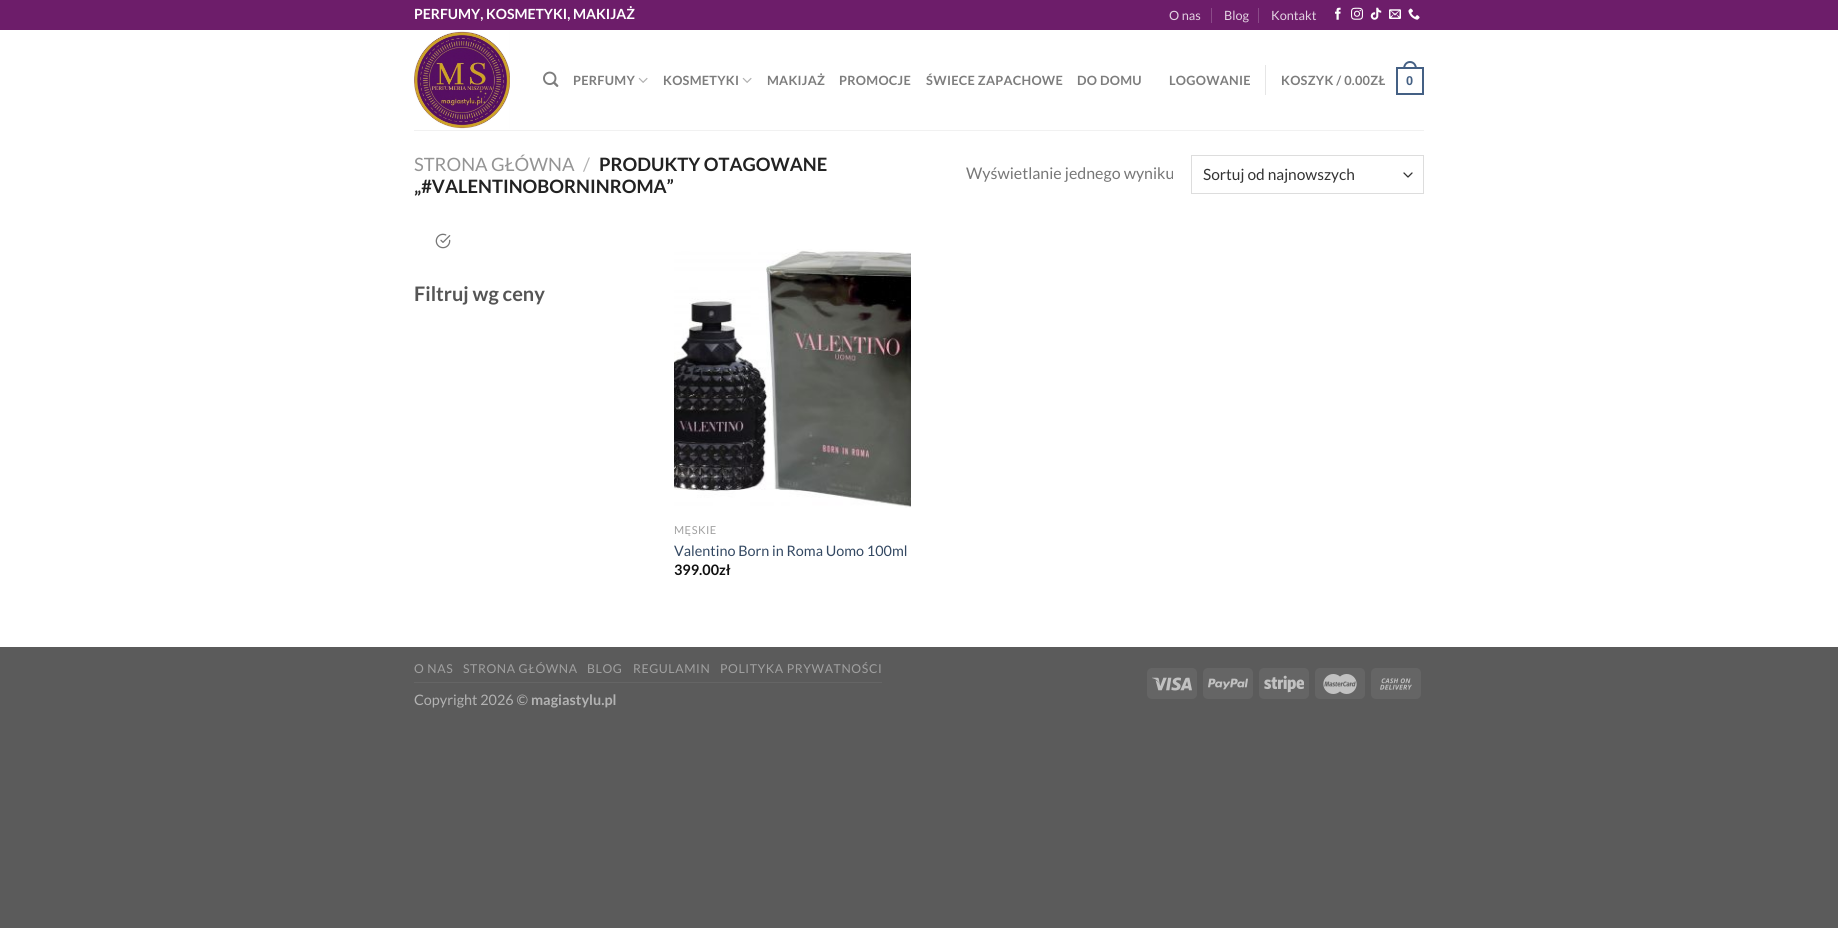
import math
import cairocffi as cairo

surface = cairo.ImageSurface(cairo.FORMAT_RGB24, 1838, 928)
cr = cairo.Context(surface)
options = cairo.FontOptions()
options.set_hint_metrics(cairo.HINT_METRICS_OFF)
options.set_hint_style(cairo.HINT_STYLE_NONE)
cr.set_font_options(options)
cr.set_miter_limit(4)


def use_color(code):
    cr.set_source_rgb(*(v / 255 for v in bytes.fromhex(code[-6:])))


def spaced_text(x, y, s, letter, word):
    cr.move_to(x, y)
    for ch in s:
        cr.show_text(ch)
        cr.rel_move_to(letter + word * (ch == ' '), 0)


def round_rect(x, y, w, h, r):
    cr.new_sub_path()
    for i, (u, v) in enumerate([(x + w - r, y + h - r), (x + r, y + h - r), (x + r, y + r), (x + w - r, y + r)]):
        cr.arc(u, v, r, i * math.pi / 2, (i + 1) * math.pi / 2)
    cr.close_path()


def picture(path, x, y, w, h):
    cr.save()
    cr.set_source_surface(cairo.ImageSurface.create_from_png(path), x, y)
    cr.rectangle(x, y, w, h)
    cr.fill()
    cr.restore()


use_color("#5b5b5b")
cr.paint()
use_color("#ffffff")
cr.rectangle(0, 30, 1838, 617)
cr.fill()
use_color("#6d1d6a")
cr.rectangle(0, 0, 1838, 30)
cr.fill()
cr.select_font_face("Lato", cairo.FONT_SLANT_NORMAL, cairo.FONT_WEIGHT_BOLD)
cr.set_font_size(14)
use_color("#ffffff")
cr.move_to(414, 19)
cr.show_text("PERFUMY, KOSMETYKI, MAKIJAŻ")
cr.select_font_face("Lato")
cr.set_font_size(12.75)
use_color("#e2d2e1")
cr.move_to(1169, 20)
cr.show_text("O nas")
use_color("#8a4a88")
cr.rectangle(1211, 8, 1, 15)
cr.fill()
use_color("#e2d2e1")
cr.move_to(1224, 20)
cr.show_text("Blog")
use_color("#8a4a88")
cr.rectangle(1258, 8, 1, 15)
cr.fill()
use_color("#e2d2e1")
cr.move_to(1271, 20)
cr.show_text("Kontakt")
picture("img1.png", 1335, 7, 6, 13)
picture("img2.png", 1351, 7, 12, 13)
picture("img3.png", 1370, 7, 12, 13)
picture("img4.png", 1389, 9, 12, 10)
picture("img5.png", 1408, 8, 12, 12)
picture("img6.png", 414, 31, 96, 98)
picture("img7.png", 543, 71, 16, 16)
cr.select_font_face("Lato", cairo.FONT_SLANT_NORMAL, cairo.FONT_WEIGHT_BOLD)
use_color("#7d7d7d")
spaced_text(573, 85, "PERFUMY", 0.25, 0)
picture("img8.png", 638, 77, 10, 6)
spaced_text(663, 85, "KOSMETYKI", 0.25, 0)
picture("img8.png", 742, 77, 10, 6)
spaced_text(767, 85, "MAKIJAŻ", 0.25, 0)
spaced_text(839, 85, "PROMOCJE", 0.25, 0)
spaced_text(926, 85, "ŚWIECE ZAPACHOWE", 0.25, 0)
spaced_text(1077, 85, "DO DOMU", 0.25, 0)
spaced_text(1169, 85, "LOGOWANIE", 0.25, 0)
use_color("#e6e6e6")
cr.rectangle(1265, 65, 1, 30)
cr.fill()
use_color("#7d7d7d")
spaced_text(1281, 85, "KOSZYK / 0.00ZŁ", 0.25, 0)
cr.rectangle(1397, 68, 26, 26)
use_color("#446084")
cr.stroke()
cr.set_fill_rule(cairo.FILL_RULE_EVEN_ODD)
cr.new_path()
cr.move_to(1410, 61)
cr.curve_to(1414.5, 61, 1417, 65, 1417, 69)
cr.line_to(1403, 69)
cr.curve_to(1403, 65, 1405.5, 61, 1410, 61)
cr.close_path()
cr.move_to(1410, 63)
cr.curve_to(1413.5, 63, 1415, 66, 1415, 69)
cr.line_to(1405, 69)
cr.curve_to(1405, 66, 1406.5, 63, 1410, 63)
cr.close_path()
cr.fill()
cr.select_font_face("Liberation Sans", cairo.FONT_SLANT_NORMAL, cairo.FONT_WEIGHT_BOLD)
spaced_text(1406, 85, "0", 0.25, 0)
use_color("#f1f1f1")
cr.rectangle(414, 130, 1010, 1)
cr.fill()
cr.select_font_face("Lato")
cr.set_font_size(18.4)
use_color("#949494")
cr.move_to(414, 171)
cr.show_text("STRONA GŁÓWNA")
use_color("#b2b2b2")
cr.move_to(583, 171)
cr.show_text("/")
cr.select_font_face("Lato", cairo.FONT_SLANT_NORMAL, cairo.FONT_WEIGHT_BOLD)
use_color("#222222")
cr.move_to(599, 171)
cr.show_text("PRODUKTY OTAGOWANE")
cr.move_to(414, 193)
cr.show_text("„#VALENTINOBORNINROMA”")
cr.select_font_face("Lato")
cr.set_font_size(16)
use_color("#777777")
cr.move_to(966, 179)
cr.show_text("Wyświetlanie jednego wyniku")
cr.new_path()
cr.move_to(1404, 173)
cr.line_to(1408, 177)
cr.line_to(1412, 173)
use_color("#333333")
cr.set_line_width(1.3)
cr.set_line_cap(cairo.LINE_CAP_ROUND)
cr.set_line_join(cairo.LINE_JOIN_ROUND)
cr.stroke()
cr.rectangle(1191.5, 155.5, 232, 38)
use_color("#dddddd")
cr.set_line_width(1)
cr.set_line_cap(cairo.LINE_CAP_BUTT)
cr.set_line_join(cairo.LINE_JOIN_MITER)
cr.stroke()
cr.set_font_size(15.5)
use_color("#333333")
cr.move_to(1203, 180)
cr.show_text("Sortuj od najnowszych")
picture("img9.png", 435, 233, 16, 16)
cr.select_font_face("Lato", cairo.FONT_SLANT_NORMAL, cairo.FONT_WEIGHT_BOLD)
cr.set_font_size(20)
use_color("#555555")
cr.move_to(414, 301)
cr.show_text("Filtruj wg ceny")
picture("img10.png", 674, 249, 237, 259)
cr.select_font_face("Lato")
cr.set_font_size(11)
use_color("#a0a0a0")
spaced_text(674, 534, "MĘSKIE", 0.5, 0)
cr.set_font_size(14.4)
use_color("#334862")
cr.move_to(674, 556)
cr.show_text("Valentino Born in Roma Uomo 100ml")
cr.select_font_face("Lato", cairo.FONT_SLANT_NORMAL, cairo.FONT_WEIGHT_BOLD)
use_color("#111111")
cr.move_to(674, 575)
cr.show_text("399.00zł")
use_color("#656565")
cr.rectangle(414, 682, 468, 1)
cr.fill()
cr.select_font_face("Lato")
cr.set_font_size(12.25)
use_color("#a0a0a0")
spaced_text(414, 673, "O NAS", 0.6, 0)
spaced_text(463, 673, "STRONA GŁÓWNA", 0.6, 0)
spaced_text(587, 673, "BLOG", 0.6, 0)
spaced_text(633, 673, "REGULAMIN", 0.6, 0)
spaced_text(720, 673, "POLITYKA PRYWATNOŚCI", 0.6, 0)
cr.set_font_size(14.4)
use_color("#b2b2b2")
cr.move_to(414, 705)
cr.show_text("Copyright 2026 ©")
cr.select_font_face("Lato", cairo.FONT_SLANT_NORMAL, cairo.FONT_WEIGHT_BOLD)
cr.move_to(531, 705)
cr.show_text("magiastylu.pl")
use_color("#656565")
round_rect(1147, 668, 50, 31, 5)
cr.fill()
picture("img11.png", 1152, 677, 40, 14)
round_rect(1203, 668, 50, 31, 5)
cr.fill()
picture("img12.png", 1208, 678, 40, 12)
round_rect(1259, 668, 50, 31, 5)
cr.fill()
picture("img13.png", 1264, 675, 40, 18)
round_rect(1315, 668, 50, 31, 5)
cr.fill()
picture("img14.png", 1323, 674, 34, 20)
round_rect(1371, 668, 50, 31, 5)
cr.fill()
picture("img15.png", 1380, 678, 32, 12)
surface.write_to_png("result.png")
